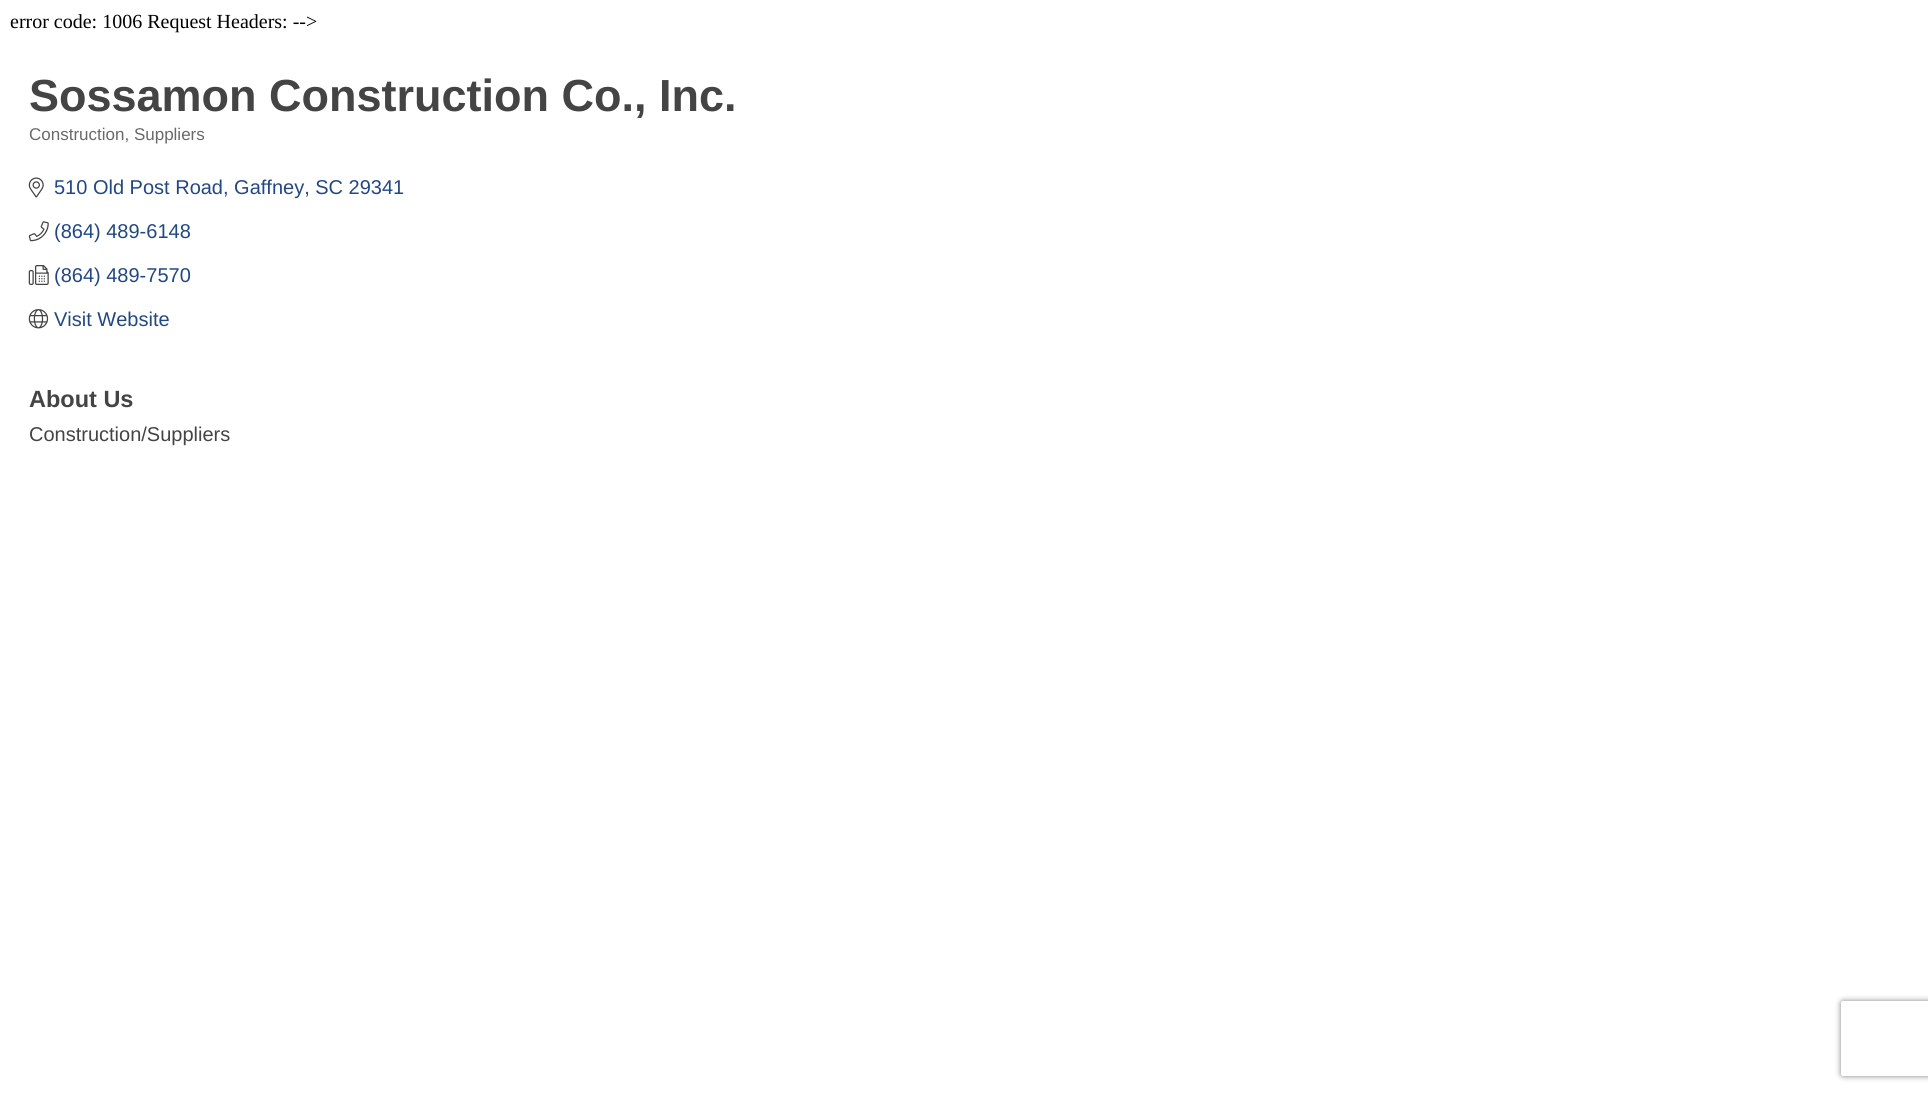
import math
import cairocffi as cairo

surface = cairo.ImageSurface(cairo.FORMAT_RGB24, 1928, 1093)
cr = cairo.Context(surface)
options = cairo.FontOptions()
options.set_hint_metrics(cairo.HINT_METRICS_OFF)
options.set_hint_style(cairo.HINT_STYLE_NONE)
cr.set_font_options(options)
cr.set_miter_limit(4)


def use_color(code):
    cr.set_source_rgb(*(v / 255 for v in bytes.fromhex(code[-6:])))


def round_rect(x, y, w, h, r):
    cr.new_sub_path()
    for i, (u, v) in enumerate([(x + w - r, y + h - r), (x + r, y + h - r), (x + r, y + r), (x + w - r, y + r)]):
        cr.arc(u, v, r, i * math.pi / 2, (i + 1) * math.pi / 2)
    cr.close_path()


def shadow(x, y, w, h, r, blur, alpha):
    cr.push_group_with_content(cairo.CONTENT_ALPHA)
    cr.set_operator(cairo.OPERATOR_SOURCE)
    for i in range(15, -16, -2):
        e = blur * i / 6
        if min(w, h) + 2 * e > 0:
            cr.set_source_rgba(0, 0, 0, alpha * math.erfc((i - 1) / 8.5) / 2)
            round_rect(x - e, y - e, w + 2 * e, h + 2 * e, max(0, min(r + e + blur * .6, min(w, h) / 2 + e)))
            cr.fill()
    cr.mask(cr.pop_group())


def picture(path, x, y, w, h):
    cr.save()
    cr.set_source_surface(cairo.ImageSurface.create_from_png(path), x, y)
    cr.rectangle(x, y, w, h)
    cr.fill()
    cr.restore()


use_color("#ffffff")
cr.paint()
cr.select_font_face("Liberation Serif")
cr.set_font_size(20)
use_color("#000000")
cr.move_to(10, 28)
cr.show_text("error code: 1006 Request Headers: -->")
cr.select_font_face("Liberation Sans", cairo.FONT_SLANT_NORMAL, cairo.FONT_WEIGHT_BOLD)
cr.set_font_size(45)
use_color("#444444")
cr.move_to(29, 111)
cr.show_text("Sossamon Construction Co., Inc.")
cr.select_font_face("Liberation Sans")
cr.set_font_size(17)
use_color("#696969")
cr.move_to(29, 140)
cr.show_text("Construction, Suppliers")
picture("img1.png", 28, 177, 16, 21)
cr.set_font_size(20)
use_color("#224884")
cr.move_to(54, 194)
cr.show_text("510 Old Post Road, Gaffney, SC 29341")
picture("img2.png", 28, 221, 21, 21)
cr.move_to(54, 238)
cr.show_text("(864) 489-6148")
picture("img3.png", 28, 265, 21, 20)
cr.move_to(54, 282)
cr.show_text("(864) 489-7570")
picture("img4.png", 28, 309, 21, 20)
cr.move_to(54, 326)
cr.show_text("Visit Website")
cr.select_font_face("Liberation Sans", cairo.FONT_SLANT_NORMAL, cairo.FONT_WEIGHT_BOLD)
cr.set_font_size(23.5)
use_color("#444444")
cr.move_to(29, 407)
cr.show_text("About Us")
cr.select_font_face("Liberation Sans")
cr.set_font_size(20)
cr.move_to(29, 441)
cr.show_text("Construction/Suppliers")
cr.save()
cr.set_fill_rule(cairo.FILL_RULE_EVEN_ODD)
cr.new_path()
cr.move_to(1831, 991)
cr.line_to(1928, 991)
cr.line_to(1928, 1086)
cr.line_to(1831, 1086)
cr.close_path()
cr.move_to(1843.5, 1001)
cr.line_to(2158.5, 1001)
cr.curve_to(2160, 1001, 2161, 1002, 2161, 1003.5)
cr.line_to(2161, 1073.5)
cr.curve_to(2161, 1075, 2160, 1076, 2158.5, 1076)
cr.line_to(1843.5, 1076)
cr.curve_to(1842, 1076, 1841, 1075, 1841, 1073.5)
cr.line_to(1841, 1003.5)
cr.curve_to(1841, 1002, 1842, 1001, 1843.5, 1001)
cr.close_path()
cr.clip()
use_color("#808080")
shadow(1841, 1001, 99, 75, 2.5, 3, 1)
cr.restore()
surface.write_to_png("result.png")
